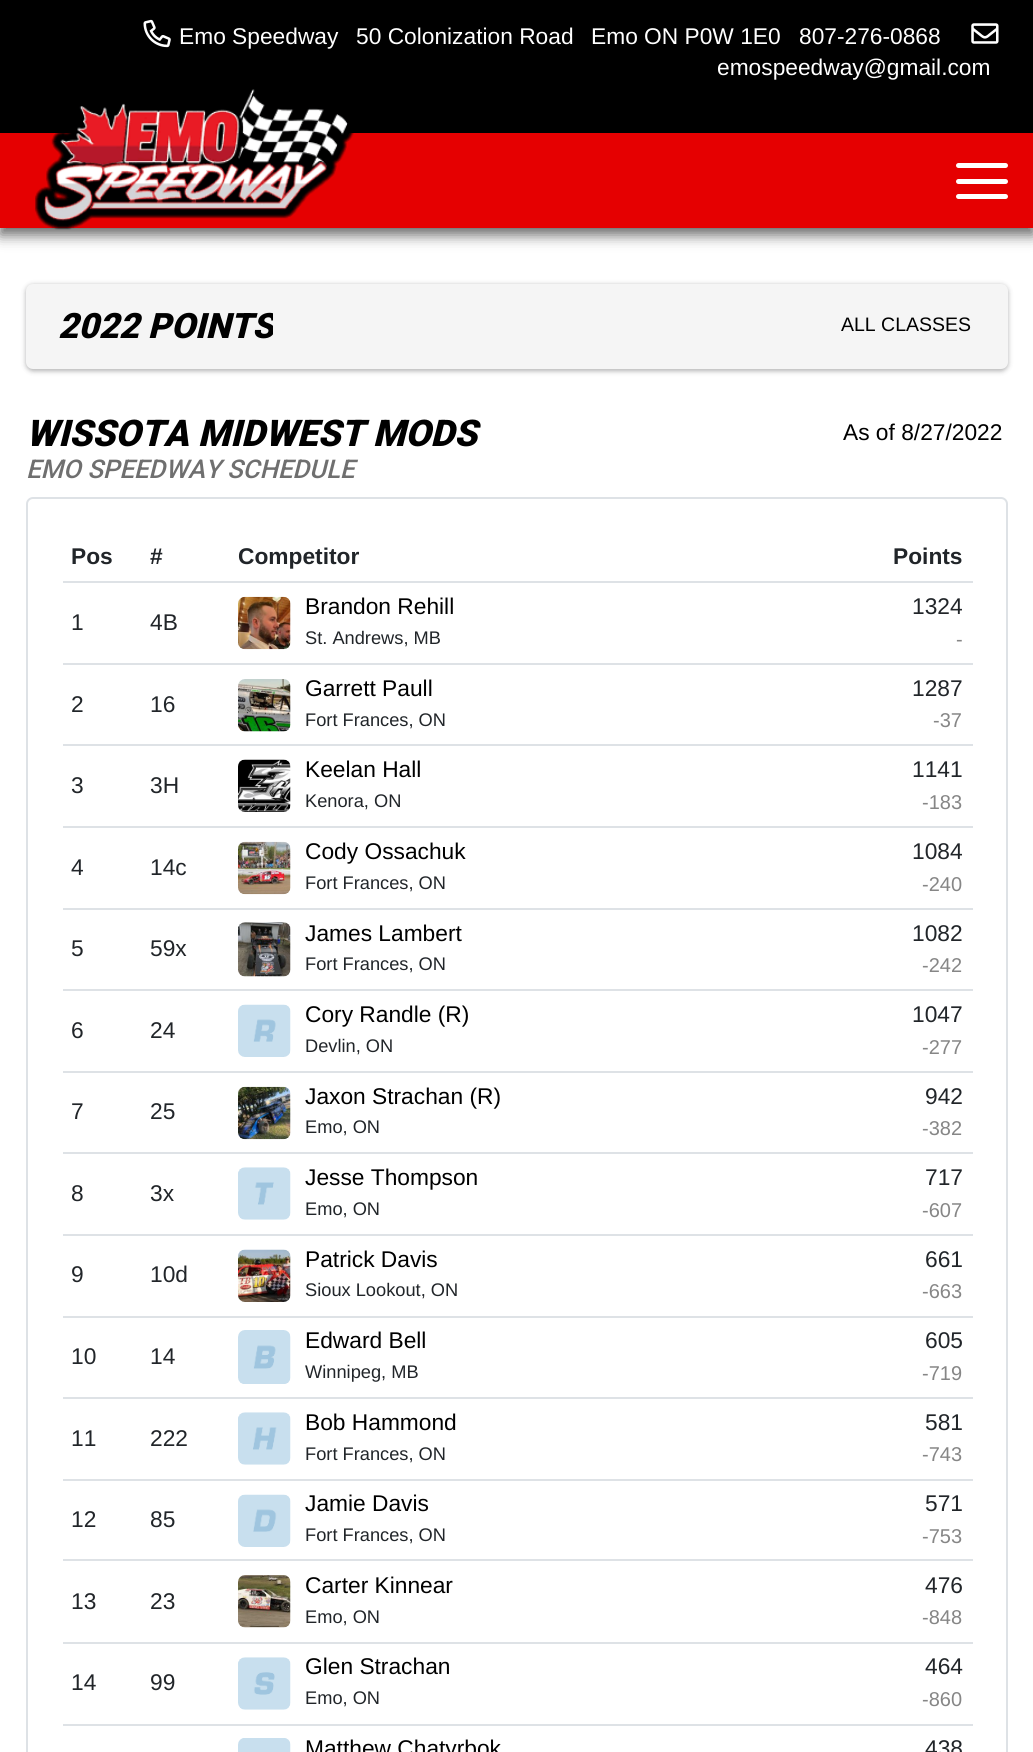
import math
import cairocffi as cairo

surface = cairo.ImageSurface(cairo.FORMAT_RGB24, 1033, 1752)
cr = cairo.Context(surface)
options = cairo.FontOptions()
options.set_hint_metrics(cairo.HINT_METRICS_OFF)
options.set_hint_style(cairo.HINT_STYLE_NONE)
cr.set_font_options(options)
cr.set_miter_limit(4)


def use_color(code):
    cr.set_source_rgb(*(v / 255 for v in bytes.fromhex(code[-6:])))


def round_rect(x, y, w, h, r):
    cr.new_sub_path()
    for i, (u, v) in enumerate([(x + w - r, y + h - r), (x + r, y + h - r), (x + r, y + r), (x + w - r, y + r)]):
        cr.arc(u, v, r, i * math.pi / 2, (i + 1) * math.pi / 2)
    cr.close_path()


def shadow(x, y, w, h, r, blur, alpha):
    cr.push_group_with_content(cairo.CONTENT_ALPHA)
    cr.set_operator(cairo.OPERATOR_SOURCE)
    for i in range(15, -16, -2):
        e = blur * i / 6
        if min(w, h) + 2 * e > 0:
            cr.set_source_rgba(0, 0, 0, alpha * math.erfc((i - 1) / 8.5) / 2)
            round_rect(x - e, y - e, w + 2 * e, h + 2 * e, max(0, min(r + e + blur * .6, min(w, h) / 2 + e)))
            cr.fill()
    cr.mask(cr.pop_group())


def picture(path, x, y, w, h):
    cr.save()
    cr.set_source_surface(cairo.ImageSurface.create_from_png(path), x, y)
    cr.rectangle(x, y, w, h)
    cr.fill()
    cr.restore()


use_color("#ffffff")
cr.paint()
use_color("#000000")
cr.rectangle(0, 0, 1033, 133)
cr.fill()
picture("img1.png", 143, 19, 28, 29)
cr.select_font_face("Liberation Sans")
cr.set_font_size(22.75)
use_color("#ffffff")
cr.move_to(179, 44)
cr.show_text("Emo Speedway")
cr.move_to(356, 44)
cr.show_text("50 Colonization Road")
cr.move_to(591, 44)
cr.show_text("Emo ON P0W 1E0")
cr.move_to(799, 44)
cr.show_text("807-276-0868")
picture("img2.png", 971, 23, 28, 21)
cr.move_to(717, 75)
cr.show_text("emospeedway@gmail.com")
use_color("#000000")
shadow(0, 140, 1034, 95, 0, 7, 0.6)
use_color("#e50001")
cr.rectangle(0, 133, 1033, 95)
cr.fill()
picture("img3.png", 35, 89, 319, 141)
use_color("#ffffff")
round_rect(956, 163, 52, 5, 2.5)
cr.fill()
round_rect(956, 179, 52, 5, 2.5)
cr.fill()
round_rect(956, 194, 52, 5, 2.5)
cr.fill()
use_color("#1f1f21")
shadow(26, 285, 982, 86, 7, 2.5, 0.35)
use_color("#f5f5f5")
round_rect(26, 284, 982, 85, 7)
cr.fill()
cr.save()
cr.rectangle(40, 298, 233, 57)
cr.clip()
cr.select_font_face("Roboto Black", cairo.FONT_SLANT_ITALIC)
cr.set_font_size(35)
use_color("#000000")
cr.move_to(58, 338)
cr.show_text("2022 POINTS")
cr.restore()
cr.set_font_size(19.5)
use_color("#000000")
cr.move_to(841, 331)
cr.show_text("ALL CLASSES")
cr.select_font_face("Roboto Black", cairo.FONT_SLANT_ITALIC)
cr.set_font_size(36.75)
cr.move_to(26, 446)
cr.show_text("WISSOTA MIDWEST MODS")
cr.select_font_face("Roboto Medium", cairo.FONT_SLANT_ITALIC)
cr.set_font_size(25.75)
use_color("#6f6f6f")
cr.move_to(26, 478)
cr.show_text("EMO SPEEDWAY SCHEDULE")
cr.select_font_face("Liberation Sans")
cr.set_font_size(22.75)
use_color("#000000")
cr.move_to(843, 440)
cr.show_text("As of 8/27/2022")
round_rect(27, 498, 980, 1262, 6)
use_color("#dee2e6")
cr.stroke()
cr.select_font_face("Liberation Sans", cairo.FONT_SLANT_NORMAL, cairo.FONT_WEIGHT_BOLD)
use_color("#212529")
cr.move_to(71, 564)
cr.show_text("Pos")
cr.move_to(150, 564)
cr.show_text("#")
cr.move_to(238, 564)
cr.show_text("Competitor")
cr.move_to(893, 564)
cr.show_text("Points")
cr.select_font_face("Liberation Sans")
cr.move_to(71, 630)
cr.show_text("1")
cr.move_to(150, 630)
cr.show_text("4B")
picture("img4.png", 238, 596, 53, 54)
use_color("#000000")
cr.move_to(305, 614)
cr.show_text("Brandon Rehill")
cr.set_font_size(18.25)
use_color("#212529")
cr.move_to(305, 644)
cr.show_text("St. Andrews, MB")
use_color("#dee2e6")
cr.rectangle(63, 581, 910, 2)
cr.fill()
cr.set_font_size(22.75)
use_color("#212529")
cr.move_to(912, 614)
cr.show_text("1324")
cr.set_font_size(20)
use_color("#868686")
cr.move_to(956, 646)
cr.show_text("-")
cr.set_font_size(22.75)
use_color("#212529")
cr.move_to(71, 712)
cr.show_text("2")
cr.move_to(150, 712)
cr.show_text("16")
picture("img5.png", 238, 679, 53, 53)
use_color("#000000")
cr.move_to(305, 696)
cr.show_text("Garrett Paull")
cr.set_font_size(18.25)
use_color("#212529")
cr.move_to(305, 726)
cr.show_text("Fort Frances, ON")
use_color("#dee2e6")
cr.rectangle(63, 663, 910, 2)
cr.fill()
cr.set_font_size(22.75)
use_color("#212529")
cr.move_to(912, 696)
cr.show_text("1287")
cr.set_font_size(20)
use_color("#868686")
cr.move_to(933, 727)
cr.show_text("-37")
cr.set_font_size(22.75)
use_color("#212529")
cr.move_to(71, 793)
cr.show_text("3")
cr.move_to(150, 793)
cr.show_text("3H")
picture("img6.png", 238, 759, 53, 53)
use_color("#000000")
cr.move_to(305, 777)
cr.show_text("Keelan Hall")
cr.set_font_size(18.25)
use_color("#212529")
cr.move_to(305, 807)
cr.show_text("Kenora, ON")
use_color("#dee2e6")
cr.rectangle(63, 744, 910, 2)
cr.fill()
cr.set_font_size(22.75)
use_color("#212529")
cr.move_to(912, 777)
cr.show_text("1141")
cr.set_font_size(20)
use_color("#868686")
cr.move_to(922, 809)
cr.show_text("-183")
cr.set_font_size(22.75)
use_color("#212529")
cr.move_to(71, 875)
cr.show_text("4")
cr.move_to(150, 875)
cr.show_text("14c")
picture("img7.png", 238, 841, 53, 54)
use_color("#000000")
cr.move_to(305, 859)
cr.show_text("Cody Ossachuk")
cr.set_font_size(18.25)
use_color("#212529")
cr.move_to(305, 889)
cr.show_text("Fort Frances, ON")
use_color("#dee2e6")
cr.rectangle(63, 826, 910, 2)
cr.fill()
cr.set_font_size(22.75)
use_color("#212529")
cr.move_to(912, 859)
cr.show_text("1084")
cr.set_font_size(20)
use_color("#868686")
cr.move_to(922, 891)
cr.show_text("-240")
cr.set_font_size(22.75)
use_color("#212529")
cr.move_to(71, 956)
cr.show_text("5")
cr.move_to(150, 956)
cr.show_text("59x")
picture("img8.png", 238, 922, 53, 55)
use_color("#000000")
cr.move_to(305, 941)
cr.show_text("James Lambert")
cr.set_font_size(18.25)
use_color("#212529")
cr.move_to(305, 970)
cr.show_text("Fort Frances, ON")
use_color("#dee2e6")
cr.rectangle(63, 908, 910, 2)
cr.fill()
cr.set_font_size(22.75)
use_color("#212529")
cr.move_to(912, 941)
cr.show_text("1082")
cr.set_font_size(20)
use_color("#868686")
cr.move_to(922, 972)
cr.show_text("-242")
cr.set_font_size(22.75)
use_color("#212529")
cr.move_to(71, 1038)
cr.show_text("6")
cr.move_to(150, 1038)
cr.show_text("24")
picture("img9.png", 238, 1004, 53, 53)
use_color("#000000")
cr.move_to(305, 1022)
cr.show_text("Cory Randle (R)")
cr.set_font_size(18.25)
use_color("#212529")
cr.move_to(305, 1052)
cr.show_text("Devlin, ON")
use_color("#dee2e6")
cr.rectangle(63, 989, 910, 2)
cr.fill()
cr.set_font_size(22.75)
use_color("#212529")
cr.move_to(912, 1022)
cr.show_text("1047")
cr.set_font_size(20)
use_color("#868686")
cr.move_to(922, 1054)
cr.show_text("-277")
cr.set_font_size(22.75)
use_color("#212529")
cr.move_to(71, 1119)
cr.show_text("7")
cr.move_to(150, 1119)
cr.show_text("25")
picture("img10.png", 238, 1086, 53, 54)
use_color("#000000")
cr.move_to(305, 1104)
cr.show_text("Jaxon Strachan (R)")
cr.set_font_size(18.25)
use_color("#212529")
cr.move_to(305, 1133)
cr.show_text("Emo, ON")
use_color("#dee2e6")
cr.rectangle(63, 1071, 910, 2)
cr.fill()
cr.set_font_size(22.75)
use_color("#212529")
cr.move_to(925, 1104)
cr.show_text("942")
cr.set_font_size(20)
use_color("#868686")
cr.move_to(922, 1135)
cr.show_text("-382")
cr.set_font_size(22.75)
use_color("#212529")
cr.move_to(71, 1201)
cr.show_text("8")
cr.move_to(150, 1201)
cr.show_text("3x")
picture("img11.png", 238, 1167, 53, 53)
use_color("#000000")
cr.move_to(305, 1185)
cr.show_text("Jesse Thompson")
cr.set_font_size(18.25)
use_color("#212529")
cr.move_to(305, 1215)
cr.show_text("Emo, ON")
use_color("#dee2e6")
cr.rectangle(63, 1152, 910, 2)
cr.fill()
cr.set_font_size(22.75)
use_color("#212529")
cr.move_to(925, 1185)
cr.show_text("717")
cr.set_font_size(20)
use_color("#868686")
cr.move_to(922, 1217)
cr.show_text("-607")
cr.set_font_size(22.75)
use_color("#212529")
cr.move_to(71, 1282)
cr.show_text("9")
cr.move_to(150, 1282)
cr.show_text("10d")
picture("img12.png", 238, 1249, 53, 53)
use_color("#000000")
cr.move_to(305, 1267)
cr.show_text("Patrick Davis")
cr.set_font_size(18.25)
use_color("#212529")
cr.move_to(305, 1296)
cr.show_text("Sioux Lookout, ON")
use_color("#dee2e6")
cr.rectangle(63, 1234, 910, 2)
cr.fill()
cr.set_font_size(22.75)
use_color("#212529")
cr.move_to(925, 1267)
cr.show_text("661")
cr.set_font_size(20)
use_color("#868686")
cr.move_to(922, 1298)
cr.show_text("-663")
cr.set_font_size(22.75)
use_color("#212529")
cr.move_to(71, 1364)
cr.show_text("10")
cr.move_to(150, 1364)
cr.show_text("14")
picture("img13.png", 238, 1330, 53, 54)
use_color("#000000")
cr.move_to(305, 1348)
cr.show_text("Edward Bell")
cr.set_font_size(18.25)
use_color("#212529")
cr.move_to(305, 1378)
cr.show_text("Winnipeg, MB")
use_color("#dee2e6")
cr.rectangle(63, 1316, 910, 2)
cr.fill()
cr.set_font_size(22.75)
use_color("#212529")
cr.move_to(925, 1348)
cr.show_text("605")
cr.set_font_size(20)
use_color("#868686")
cr.move_to(922, 1380)
cr.show_text("-719")
cr.set_font_size(22.75)
use_color("#212529")
cr.move_to(71, 1446)
cr.show_text("11")
cr.move_to(150, 1446)
cr.show_text("222")
picture("img14.png", 238, 1412, 53, 53)
use_color("#000000")
cr.move_to(305, 1430)
cr.show_text("Bob Hammond")
cr.set_font_size(18.25)
use_color("#212529")
cr.move_to(305, 1460)
cr.show_text("Fort Frances, ON")
use_color("#dee2e6")
cr.rectangle(63, 1397, 910, 2)
cr.fill()
cr.set_font_size(22.75)
use_color("#212529")
cr.move_to(925, 1430)
cr.show_text("581")
cr.set_font_size(20)
use_color("#868686")
cr.move_to(922, 1461)
cr.show_text("-743")
cr.set_font_size(22.75)
use_color("#212529")
cr.move_to(71, 1527)
cr.show_text("12")
cr.move_to(150, 1527)
cr.show_text("85")
picture("img15.png", 238, 1494, 53, 53)
use_color("#000000")
cr.move_to(305, 1511)
cr.show_text("Jamie Davis")
cr.set_font_size(18.25)
use_color("#212529")
cr.move_to(305, 1541)
cr.show_text("Fort Frances, ON")
use_color("#dee2e6")
cr.rectangle(63, 1479, 910, 2)
cr.fill()
cr.set_font_size(22.75)
use_color("#212529")
cr.move_to(925, 1511)
cr.show_text("571")
cr.set_font_size(20)
use_color("#868686")
cr.move_to(922, 1543)
cr.show_text("-753")
cr.set_font_size(22.75)
use_color("#212529")
cr.move_to(71, 1609)
cr.show_text("13")
cr.move_to(150, 1609)
cr.show_text("23")
picture("img16.png", 238, 1575, 53, 53)
use_color("#000000")
cr.move_to(305, 1593)
cr.show_text("Carter Kinnear")
cr.set_font_size(18.25)
use_color("#212529")
cr.move_to(305, 1623)
cr.show_text("Emo, ON")
use_color("#dee2e6")
cr.rectangle(63, 1559, 910, 2)
cr.fill()
cr.set_font_size(22.75)
use_color("#212529")
cr.move_to(925, 1593)
cr.show_text("476")
cr.set_font_size(20)
use_color("#868686")
cr.move_to(922, 1624)
cr.show_text("-848")
cr.set_font_size(22.75)
use_color("#212529")
cr.move_to(71, 1690)
cr.show_text("14")
cr.move_to(150, 1690)
cr.show_text("99")
picture("img17.png", 238, 1657, 53, 53)
use_color("#000000")
cr.move_to(305, 1674)
cr.show_text("Glen Strachan")
cr.set_font_size(18.25)
use_color("#212529")
cr.move_to(305, 1704)
cr.show_text("Emo, ON")
use_color("#dee2e6")
cr.rectangle(63, 1642, 910, 2)
cr.fill()
cr.set_font_size(22.75)
use_color("#212529")
cr.move_to(925, 1674)
cr.show_text("464")
cr.set_font_size(20)
use_color("#868686")
cr.move_to(922, 1706)
cr.show_text("-860")
picture("img18.png", 238, 1738, 53, 14)
cr.set_font_size(22.75)
use_color("#000000")
cr.move_to(305, 1756)
cr.show_text("Matthew Chatyrbok")
use_color("#dee2e6")
cr.rectangle(63, 1724, 910, 2)
cr.fill()
use_color("#212529")
cr.move_to(925, 1756)
cr.show_text("438")
surface.write_to_png("result.png")
